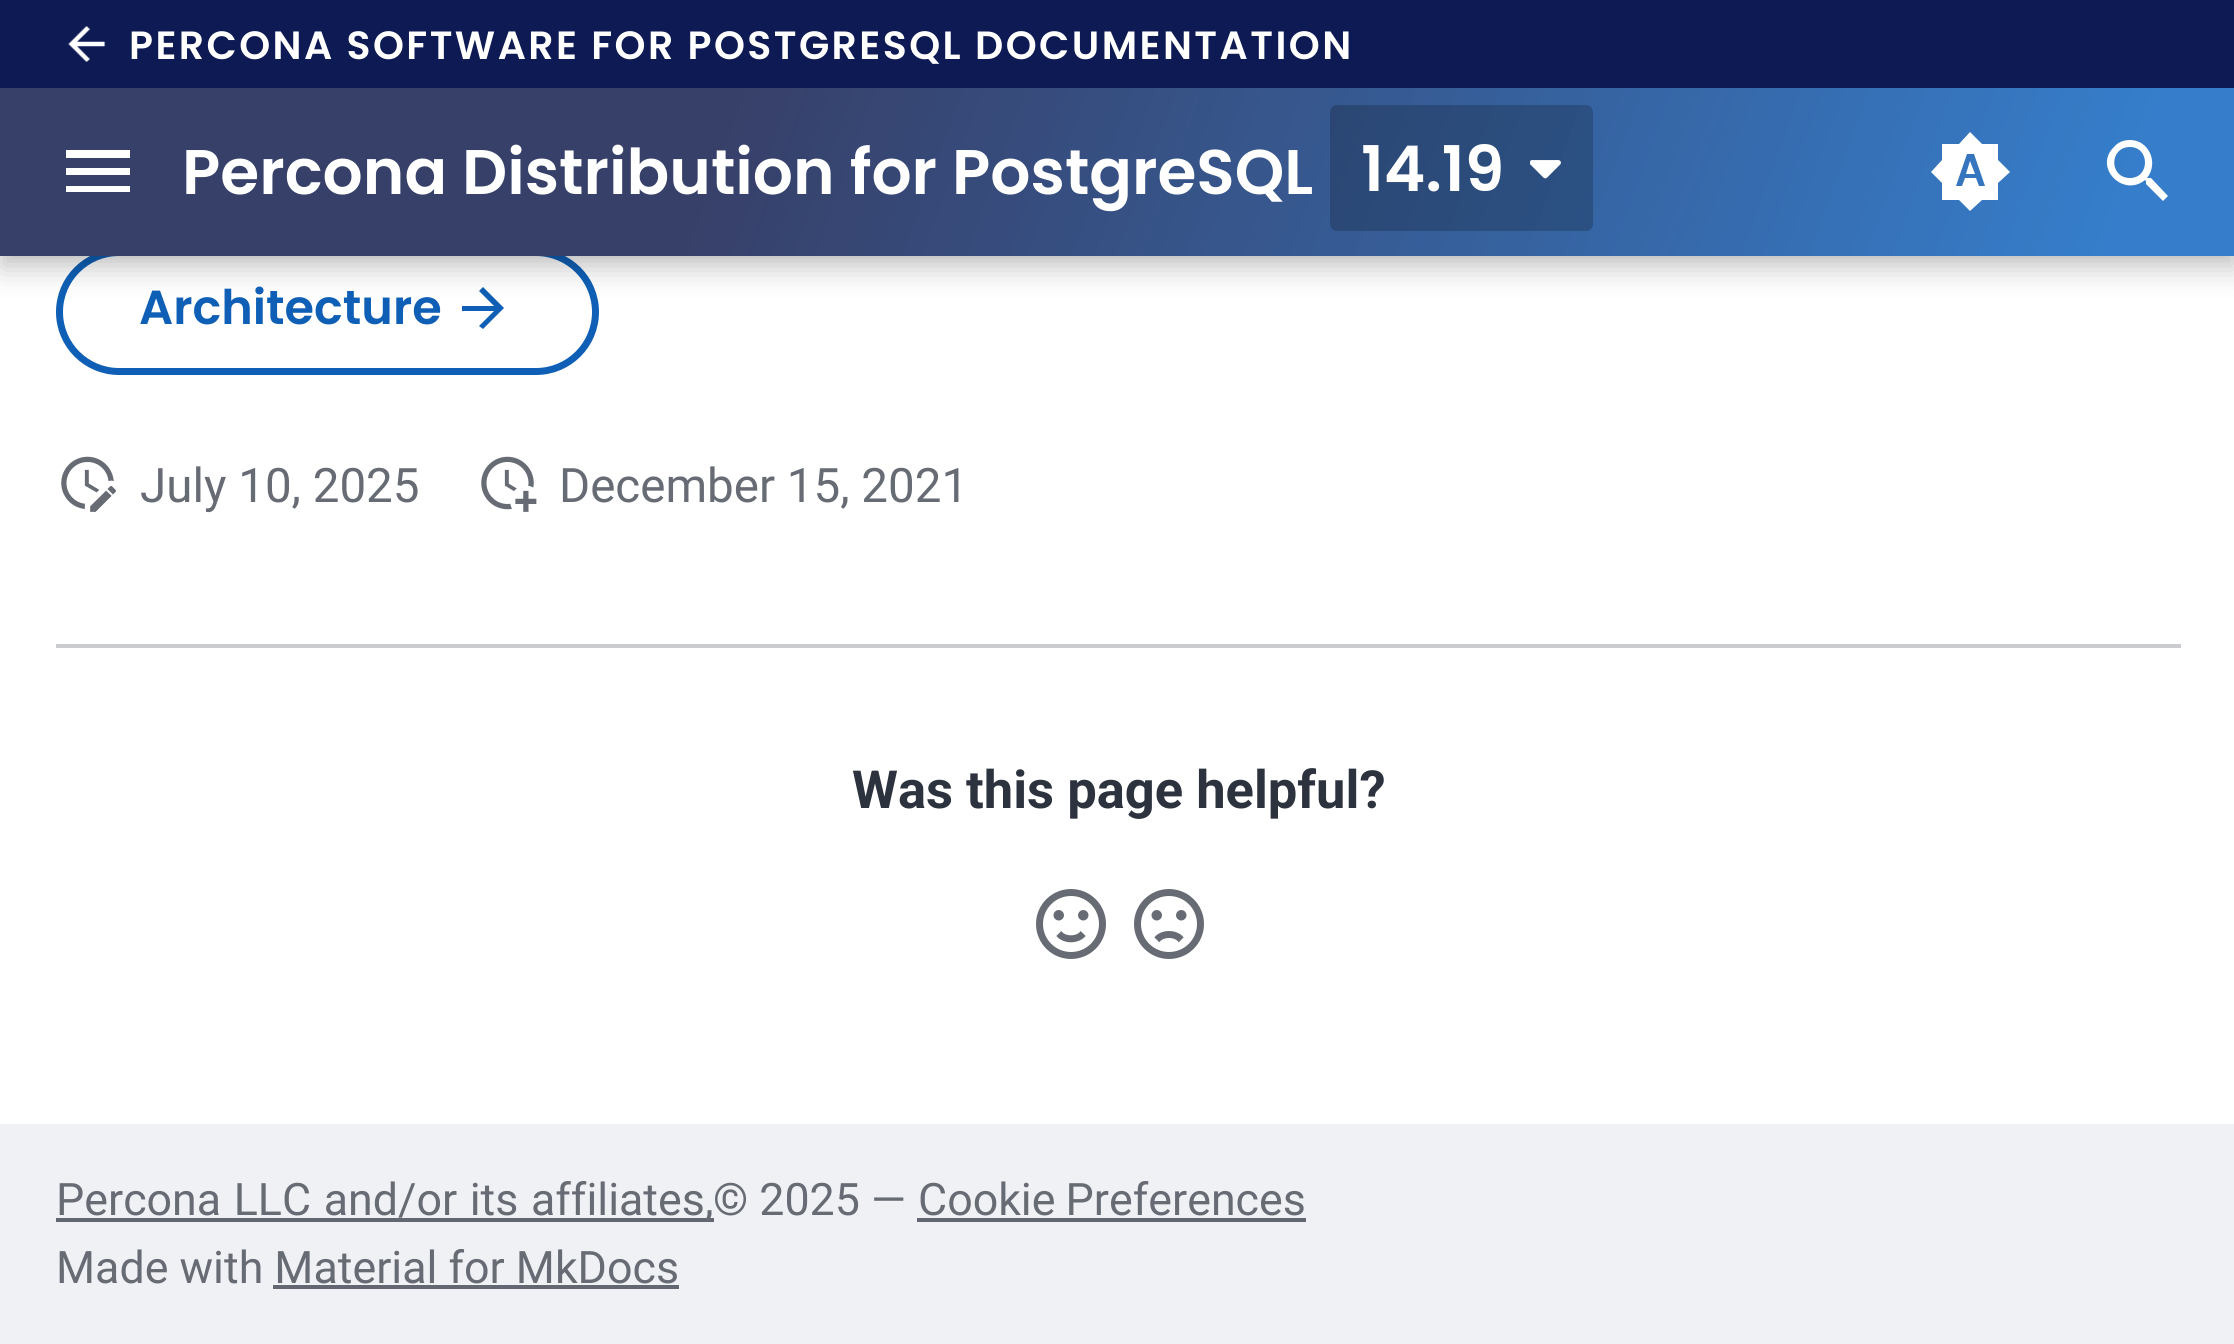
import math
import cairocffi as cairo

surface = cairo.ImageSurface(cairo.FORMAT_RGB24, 2234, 1344)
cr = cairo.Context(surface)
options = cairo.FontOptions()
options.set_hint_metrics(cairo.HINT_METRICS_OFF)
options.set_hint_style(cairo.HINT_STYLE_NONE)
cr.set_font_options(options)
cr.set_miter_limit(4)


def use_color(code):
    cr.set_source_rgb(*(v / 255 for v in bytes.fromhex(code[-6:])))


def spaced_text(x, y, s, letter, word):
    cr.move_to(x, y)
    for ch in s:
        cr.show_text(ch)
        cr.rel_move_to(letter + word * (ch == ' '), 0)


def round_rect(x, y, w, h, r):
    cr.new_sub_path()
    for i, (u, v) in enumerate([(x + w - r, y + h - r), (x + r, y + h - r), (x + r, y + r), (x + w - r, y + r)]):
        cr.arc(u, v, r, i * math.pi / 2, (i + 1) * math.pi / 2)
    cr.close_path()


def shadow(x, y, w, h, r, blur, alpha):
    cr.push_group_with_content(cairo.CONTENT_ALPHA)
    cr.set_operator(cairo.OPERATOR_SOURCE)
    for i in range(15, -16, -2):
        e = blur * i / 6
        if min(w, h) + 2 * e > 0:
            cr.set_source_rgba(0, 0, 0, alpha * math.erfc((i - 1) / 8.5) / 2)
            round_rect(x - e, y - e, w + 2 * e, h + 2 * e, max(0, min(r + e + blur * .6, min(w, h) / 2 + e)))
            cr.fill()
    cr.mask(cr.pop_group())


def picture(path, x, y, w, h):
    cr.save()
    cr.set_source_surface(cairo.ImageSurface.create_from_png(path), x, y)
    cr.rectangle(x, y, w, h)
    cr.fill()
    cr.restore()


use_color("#ffffff")
cr.paint()
round_rect(59.5, 252.5, 536, 119, 59.5)
use_color("#0e5fb5")
cr.set_line_width(7)
cr.stroke()
cr.new_path()
cr.move_to(462, 306)
cr.line_to(462, 311)
cr.line_to(494, 311)
cr.line_to(479, 326)
cr.line_to(483, 329)
cr.line_to(504, 308)
cr.line_to(483, 287)
cr.line_to(479, 291)
cr.line_to(494, 306)
cr.close_path()
cr.fill()
use_color("#000000")
shadow(0, 14, 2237, 256, 0, 14, 0.2)
shadow(0, 0, 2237, 256, 0, 7, 0.1)
gradient = cairo.LinearGradient(90, -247, 2147, 502)
gradient.add_color_stop_rgba(0.33, 0.306, 0.357, 0.588, 1)
gradient.add_color_stop_rgba(0.95, 0.263, 0.62, 1, 1)
cr.set_source(gradient)
cr.rectangle(0, 88, 2234, 168)
cr.fill()
gradient = cairo.LinearGradient(90, -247, 2147, 502)
gradient.add_color_stop_rgba(0.33, 0, 0, 0, 0.3)
gradient.add_color_stop_rgba(0.95, 0, 0, 0, 0.2)
cr.set_source(gradient)
cr.rectangle(0, 88, 2234, 168)
cr.fill()
use_color("#0e1a53")
cr.rectangle(0, 0, 2234, 88)
cr.fill()
picture("img1.png", 68, 26, 38, 36)
cr.select_font_face("Poppins SemiBold")
cr.set_font_size(39.4)
use_color("#ffffff")
spaced_text(129, 59, "PERCONA SOFTWARE FOR POSTGRESQL DOCUMENTATION", 2.45, 0)
cr.new_path()
cr.move_to(66, 150)
cr.line_to(130, 150)
cr.line_to(130, 158)
cr.line_to(66, 158)
cr.close_path()
cr.move_to(66, 168)
cr.line_to(130, 168)
cr.line_to(130, 175)
cr.line_to(66, 175)
cr.close_path()
cr.move_to(66, 186)
cr.line_to(130, 186)
cr.line_to(130, 192)
cr.line_to(66, 192)
cr.close_path()
cr.fill()
cr.set_font_size(63)
cr.move_to(182, 194)
cr.show_text("Percona Distribution for PostgreSQL")
cr.set_source_rgba(0, 0, 0, 0.2)
round_rect(1330, 105, 263, 126, 7)
cr.fill()
use_color("#ffffff")
cr.move_to(1361, 191)
cr.show_text("14.19")
picture("img2.png", 1530, 160, 31, 19)
cr.new_path()
cr.move_to(1979, 186)
cr.line_to(1976, 178)
cr.line_to(1965, 178)
cr.line_to(1962, 186)
cr.line_to(1956, 186)
cr.line_to(1967, 154)
cr.line_to(1974, 154)
cr.line_to(1985, 186)
cr.close_path()
cr.move_to(1998, 160)
cr.line_to(1998, 144)
cr.line_to(1982, 144)
cr.line_to(1970, 132)
cr.line_to(1959, 144)
cr.line_to(1942, 144)
cr.line_to(1942, 160)
cr.line_to(1931, 172)
cr.line_to(1942, 183)
cr.line_to(1942, 200)
cr.line_to(1959, 200)
cr.line_to(1970, 211)
cr.line_to(1982, 200)
cr.line_to(1998, 200)
cr.line_to(1998, 183)
cr.line_to(2010, 172)
cr.close_path()
cr.move_to(1966, 174)
cr.line_to(1975, 174)
cr.line_to(1970, 161)
cr.close_path()
cr.fill()
cr.new_path()
cr.move_to(2130, 140)
cr.curve_to(2149, 140, 2159, 163, 2147, 178)
cr.line_to(2148, 178)
cr.line_to(2151, 178)
cr.line_to(2168, 196)
cr.line_to(2163, 201)
cr.line_to(2146, 184)
cr.line_to(2146, 181)
cr.line_to(2145, 180)
cr.curve_to(2123, 198, 2093, 167, 2114, 147)
cr.curve_to(2118, 142, 2124, 140, 2130, 140)
cr.move_to(2130, 147)
cr.curve_to(2109, 147, 2109, 178, 2130, 178)
cr.curve_to(2150, 178, 2150, 147, 2130, 147)
cr.fill()
cr.set_font_size(47.75)
use_color("#0e5fb5")
cr.move_to(139, 324)
cr.show_text("Architecture")
picture("img3.png", 61, 456, 55, 56)
cr.select_font_face("Roboto")
cr.set_font_size(47.5)
use_color("#676b74")
cr.move_to(140, 502)
cr.show_text("July 10, 2025")
picture("img4.png", 481, 456, 56, 56)
cr.move_to(559, 502)
cr.show_text("December 15, 2021")
use_color("#cacccf")
cr.rectangle(56, 644, 2125, 4)
cr.fill()
cr.select_font_face("Roboto", cairo.FONT_SLANT_NORMAL, cairo.FONT_WEIGHT_BOLD)
cr.set_font_size(52.5)
use_color("#2c323e")
cr.move_to(852, 808)
cr.show_text("Was this page helpful?")
picture("img5.png", 1036, 889, 70, 70)
picture("img6.png", 1134, 889, 70, 70)
use_color("#f0f1f4")
cr.rectangle(0, 1124, 2234, 220)
cr.fill()
use_color("#636771")
cr.rectangle(56, 1218, 658, 4)
cr.fill()
cr.select_font_face("Roboto")
cr.set_font_size(44.75)
use_color("#676b74")
spaced_text(56, 1215, "Percona LLC and/or its affiliates,", 0, 1.5)
cr.move_to(713, 1215)
cr.show_text("© 2025 —")
spaced_text(918, 1215, "Cookie Preferences", 0, -1)
use_color("#636771")
cr.rectangle(917, 1218, 389, 4)
cr.fill()
use_color("#676b74")
cr.move_to(56, 1283)
cr.show_text("Made with Material for MkDocs")
use_color("#636771")
cr.rectangle(273, 1285, 406, 4)
cr.fill()
surface.write_to_png("result.png")
